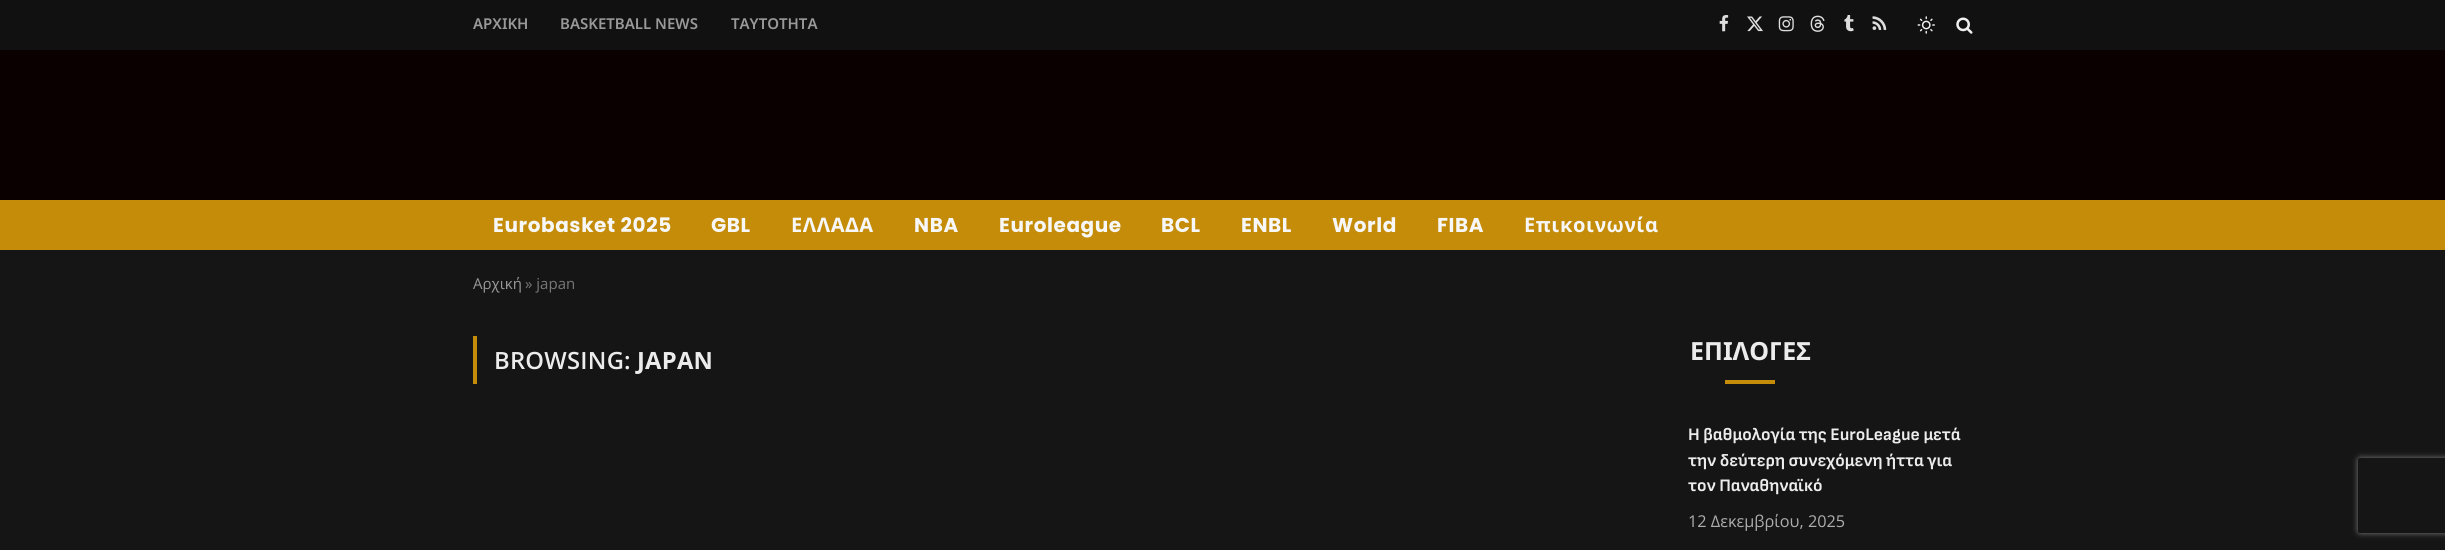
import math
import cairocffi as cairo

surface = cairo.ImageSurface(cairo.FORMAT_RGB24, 2445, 550)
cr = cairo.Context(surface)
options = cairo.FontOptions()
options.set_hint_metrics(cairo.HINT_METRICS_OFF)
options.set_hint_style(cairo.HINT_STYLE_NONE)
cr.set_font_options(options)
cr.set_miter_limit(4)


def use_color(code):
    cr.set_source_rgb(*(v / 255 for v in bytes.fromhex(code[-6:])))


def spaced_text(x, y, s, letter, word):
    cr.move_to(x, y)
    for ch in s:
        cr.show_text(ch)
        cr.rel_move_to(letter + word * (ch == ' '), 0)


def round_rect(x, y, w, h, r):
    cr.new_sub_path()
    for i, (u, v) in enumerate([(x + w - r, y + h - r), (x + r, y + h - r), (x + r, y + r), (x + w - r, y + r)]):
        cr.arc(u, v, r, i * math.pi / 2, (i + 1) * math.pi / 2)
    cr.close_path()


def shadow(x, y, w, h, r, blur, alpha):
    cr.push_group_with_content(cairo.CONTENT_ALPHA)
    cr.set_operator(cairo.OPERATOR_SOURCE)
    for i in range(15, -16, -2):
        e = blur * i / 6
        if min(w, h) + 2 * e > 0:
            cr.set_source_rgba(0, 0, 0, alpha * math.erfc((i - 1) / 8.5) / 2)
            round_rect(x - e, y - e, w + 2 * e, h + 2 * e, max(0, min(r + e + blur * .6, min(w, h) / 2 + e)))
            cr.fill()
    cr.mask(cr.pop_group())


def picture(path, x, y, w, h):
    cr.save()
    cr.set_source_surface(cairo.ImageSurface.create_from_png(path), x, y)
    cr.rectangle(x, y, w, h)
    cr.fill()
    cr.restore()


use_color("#151516")
cr.paint()
use_color("#111111")
cr.rectangle(0, 0, 2445, 50)
cr.fill()
cr.select_font_face("Noto Sans SemiBold")
cr.set_font_size(15)
use_color("#999999")
cr.move_to(473, 29)
cr.show_text("ΑΡΧΙΚΗ")
cr.move_to(560, 29)
cr.show_text("BASKETBALL NEWS")
cr.move_to(731, 29)
cr.show_text("ΤΑΥΤΟΤΗΤΑ")
picture("img1.png", 1719, 15, 10, 17)
picture("img2.png", 1747, 16, 16, 16)
picture("img3.png", 1778, 16, 16, 16)
picture("img4.png", 1810, 15, 15, 17)
picture("img5.png", 1844, 15, 10, 17)
picture("img6.png", 1872, 16, 15, 14)
picture("img7.png", 1917, 16, 18, 18)
picture("img8.png", 1956, 17, 17, 17)
use_color("#0a0000")
cr.rectangle(0, 50, 2445, 150)
cr.fill()
use_color("#c48c09")
cr.rectangle(0, 200, 2445, 50)
cr.fill()
cr.select_font_face("Poppins", cairo.FONT_SLANT_NORMAL, cairo.FONT_WEIGHT_BOLD)
cr.set_font_size(20)
use_color("#f7f7f7")
spaced_text(493, 232, "Eurobasket 2025", 0.6, 0)
spaced_text(711, 232, "GBL", 0.6, 0)
cr.select_font_face("Noto Sans", cairo.FONT_SLANT_NORMAL, cairo.FONT_WEIGHT_BOLD)
spaced_text(791, 232, "ΕΛΛΑΔΑ", 0.6, 0)
cr.select_font_face("Poppins", cairo.FONT_SLANT_NORMAL, cairo.FONT_WEIGHT_BOLD)
spaced_text(914, 232, "NBA", 0.6, 0)
spaced_text(999, 232, "Euroleague", 0.6, 0)
spaced_text(1161, 232, "BCL", 0.6, 0)
spaced_text(1241, 232, "ENBL", 0.6, 0)
spaced_text(1332, 232, "World", 0.6, 0)
spaced_text(1437, 232, "FIBA", 0.6, 0)
cr.select_font_face("Noto Sans", cairo.FONT_SLANT_NORMAL, cairo.FONT_WEIGHT_BOLD)
spaced_text(1524, 232, "Επικοινωνία", 0.6, 0)
cr.select_font_face("Open Sans")
cr.set_font_size(15)
use_color("#999999")
cr.move_to(473, 289)
cr.show_text("Αρχική")
use_color("#777777")
cr.move_to(525, 289)
cr.show_text("» japan")
use_color("#c48c09")
cr.rectangle(473, 336, 4, 48)
cr.fill()
cr.select_font_face("Open Sans SemiBold")
cr.set_font_size(23.75)
use_color("#ececec")
spaced_text(494, 369, "BROWSING:", 0.25, 0)
cr.select_font_face("Open Sans", cairo.FONT_SLANT_NORMAL, cairo.FONT_WEIGHT_BOLD)
spaced_text(637, 369, "JAPAN", 0.25, 0)
cr.select_font_face("Noto Sans", cairo.FONT_SLANT_NORMAL, cairo.FONT_WEIGHT_BOLD)
cr.set_font_size(25)
cr.move_to(1690, 360)
cr.show_text("ΕΠΙΛΟΓΕΣ")
use_color("#c48c09")
cr.rectangle(1725, 380, 50, 4)
cr.fill()
cr.select_font_face("Sofia Sans", cairo.FONT_SLANT_NORMAL, cairo.FONT_WEIGHT_BOLD)
cr.set_font_size(17.5)
use_color("#ececec")
cr.move_to(1688, 440)
cr.show_text("Η βαθμολογία της EuroLeague μετά")
cr.move_to(1688, 466)
cr.show_text("την δεύτερη συνεχόμενη ήττα για")
cr.move_to(1688, 491)
cr.show_text("τον Παναθηναϊκό")
cr.select_font_face("Open Sans")
cr.set_font_size(16.25)
use_color("#adadad")
cr.move_to(1688, 527)
cr.show_text("12 Δεκεμβρίου, 2025")
cr.save()
cr.set_fill_rule(cairo.FILL_RULE_EVEN_ODD)
cr.new_path()
cr.move_to(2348, 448)
cr.line_to(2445, 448)
cr.line_to(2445, 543)
cr.line_to(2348, 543)
cr.close_path()
cr.move_to(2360.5, 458)
cr.line_to(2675.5, 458)
cr.curve_to(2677, 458, 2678, 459, 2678, 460.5)
cr.line_to(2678, 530.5)
cr.curve_to(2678, 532, 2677, 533, 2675.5, 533)
cr.line_to(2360.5, 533)
cr.curve_to(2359, 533, 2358, 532, 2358, 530.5)
cr.line_to(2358, 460.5)
cr.curve_to(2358, 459, 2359, 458, 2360.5, 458)
cr.close_path()
cr.clip()
use_color("#808080")
shadow(2358, 458, 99, 75, 2.5, 3, 1)
cr.restore()
surface.write_to_png("result.png")
